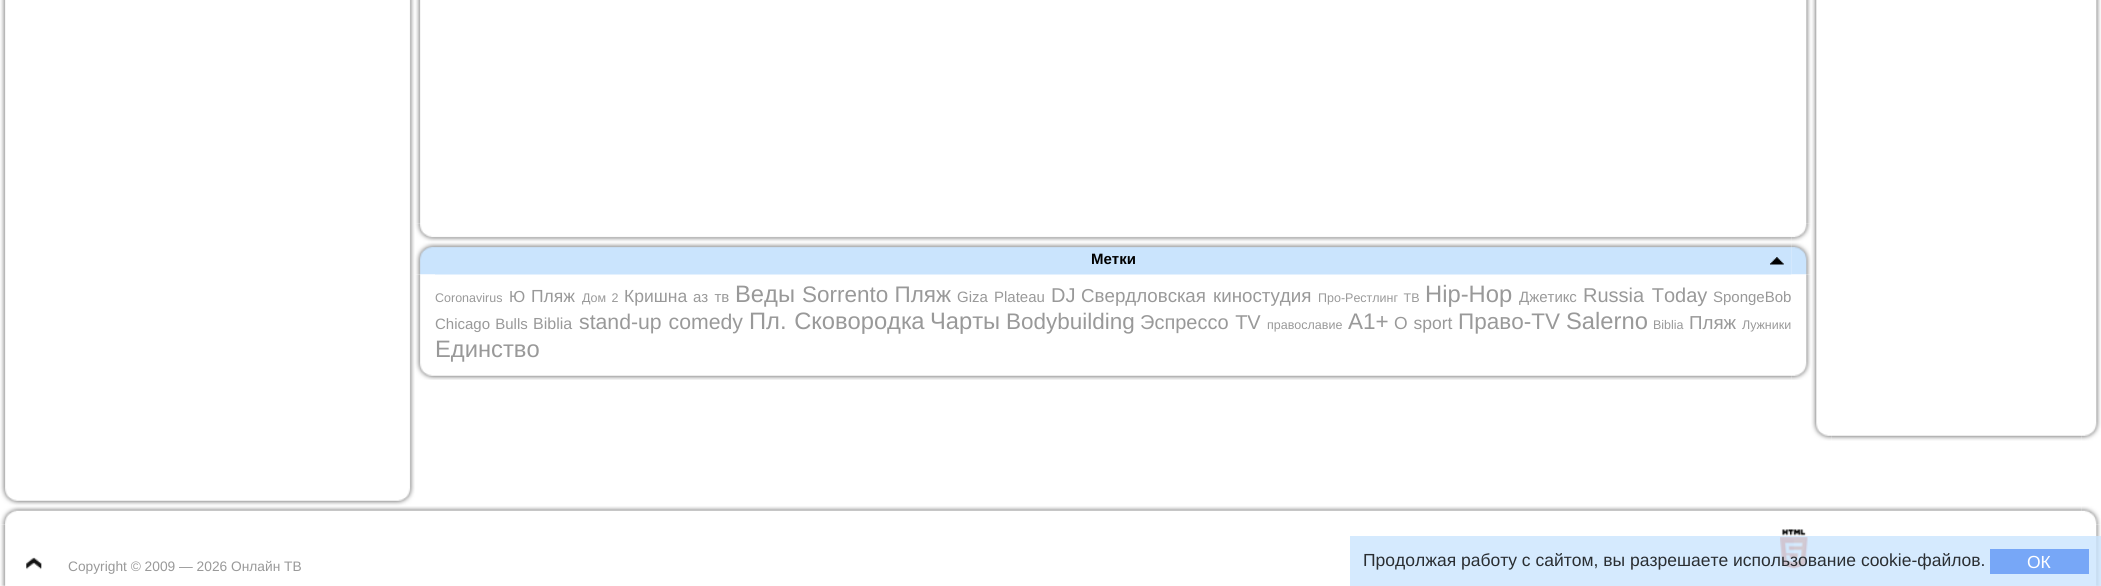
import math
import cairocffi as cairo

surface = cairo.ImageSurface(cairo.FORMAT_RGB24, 2101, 586)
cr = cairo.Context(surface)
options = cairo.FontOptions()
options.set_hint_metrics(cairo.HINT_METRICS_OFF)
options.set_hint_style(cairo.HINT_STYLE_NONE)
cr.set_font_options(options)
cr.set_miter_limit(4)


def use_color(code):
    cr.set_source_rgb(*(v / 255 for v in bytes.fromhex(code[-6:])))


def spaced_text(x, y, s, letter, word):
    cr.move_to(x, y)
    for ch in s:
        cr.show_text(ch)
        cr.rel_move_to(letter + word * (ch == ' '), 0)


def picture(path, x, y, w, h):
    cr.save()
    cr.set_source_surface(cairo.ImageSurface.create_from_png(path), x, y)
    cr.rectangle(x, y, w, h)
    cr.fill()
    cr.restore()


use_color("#ffffff")
cr.paint()
picture("img1.png", 0, 0, 6, 487)
picture("img2.png", 409, 0, 6, 487)
picture("img3.png", 0, 487, 20, 19)
picture("img4.png", 20, 500, 375, 6)
picture("img5.png", 395, 487, 20, 19)
picture("img6.png", 415, 0, 6, 224)
picture("img7.png", 1806, 0, 5, 224)
picture("img8.png", 415, 223, 20, 19)
picture("img9.png", 435, 236, 1357, 6)
picture("img10.png", 1791, 223, 20, 19)
picture("img11.png", 415, 242, 20, 33)
picture("img12.png", 435, 242, 1357, 33)
cr.select_font_face("Liberation Sans", cairo.FONT_SLANT_NORMAL, cairo.FONT_WEIGHT_BOLD)
cr.set_font_size(15)
use_color("#000000")
cr.move_to(1091, 264)
cr.show_text("Метки")
picture("img13.png", 1770, 257, 14, 8)
picture("img14.png", 1791, 242, 20, 33)
picture("img15.png", 415, 274, 20, 88)
cr.select_font_face("Liberation Sans")
cr.set_font_size(12.5)
use_color("#999999")
cr.move_to(435, 302)
cr.show_text("Coronavirus")
cr.set_font_size(16)
cr.move_to(509, 302)
cr.show_text("Ю")
cr.set_font_size(17.5)
cr.move_to(531, 302)
cr.show_text("Пляж")
cr.set_font_size(12.5)
spaced_text(582, 302, "Дом 2", 0, 2)
cr.set_font_size(17.5)
cr.move_to(624, 302)
cr.show_text("Кришна")
cr.set_font_size(15)
spaced_text(693, 302, "аз тв", 0, 2)
cr.set_font_size(23.75)
cr.move_to(735, 302)
cr.show_text("Веды")
cr.set_font_size(22.5)
cr.move_to(802, 302)
cr.show_text("Sorrento Пляж")
cr.set_font_size(15)
spaced_text(957, 302, "Giza Plateau", 0, 2)
cr.set_font_size(20)
cr.move_to(1051, 302)
cr.show_text("DJ")
cr.set_font_size(18.75)
spaced_text(1081, 302, "Свердловская киностудия", 0, 2)
cr.set_font_size(12.5)
spaced_text(1318, 302, "Про-Рестлинг ТВ", 0, 2)
cr.set_font_size(23.75)
cr.move_to(1425, 302)
cr.show_text("Hip-Hop")
cr.set_font_size(15)
cr.move_to(1519, 302)
cr.show_text("Джетикс")
cr.set_font_size(20)
spaced_text(1583, 302, "Russia Today", 0, 2)
cr.set_font_size(15)
cr.move_to(1713, 302)
cr.show_text("SpongeBob")
spaced_text(435, 329, "Chicago Bulls", 0, 1)
cr.set_font_size(16)
cr.move_to(533, 329)
cr.show_text("Biblia")
cr.set_font_size(21.25)
spaced_text(579, 329, "stand-up comedy", 0, 1)
cr.set_font_size(23.75)
spaced_text(749, 329, "Пл. Сковородка", 0, 1)
cr.move_to(930, 329)
cr.show_text("Чарты")
cr.set_font_size(22.5)
cr.move_to(1006, 329)
cr.show_text("Bodybuilding")
cr.set_font_size(20)
spaced_text(1140, 329, "Эспрессо TV", 0, 1)
cr.set_font_size(12.5)
cr.move_to(1267, 329)
cr.show_text("православие")
cr.set_font_size(22.5)
cr.move_to(1348, 329)
cr.show_text("A1+")
cr.set_font_size(17.5)
spaced_text(1394, 329, "O sport", 0, 1)
cr.set_font_size(22.5)
cr.move_to(1458, 329)
cr.show_text("Право-TV")
cr.set_font_size(23.75)
cr.move_to(1566, 329)
cr.show_text("Salerno")
cr.set_font_size(12.5)
cr.move_to(1653, 329)
cr.show_text("Biblia")
cr.set_font_size(18.75)
cr.move_to(1689, 329)
cr.show_text("Пляж")
cr.set_font_size(12.5)
cr.move_to(1742, 329)
cr.show_text("Лужники")
cr.set_font_size(23.75)
cr.move_to(435, 357)
cr.show_text("Единство")
picture("img16.png", 1791, 274, 20, 88)
picture("img17.png", 415, 362, 20, 18)
picture("img18.png", 435, 375, 1357, 5)
picture("img19.png", 1791, 362, 20, 18)
picture("img20.png", 1811, 0, 6, 422)
picture("img21.png", 2096, 0, 5, 422)
picture("img22.png", 1811, 422, 21, 19)
picture("img23.png", 1831, 435, 251, 6)
picture("img24.png", 2081, 422, 20, 19)
picture("img25.png", 0, 506, 20, 19)
picture("img26.png", 20, 506, 2062, 5)
picture("img27.png", 2081, 506, 20, 19)
picture("img28.png", 0, 524, 6, 62)
picture("img29.png", 26, 557, 16, 13)
cr.set_font_size(13.75)
cr.move_to(68, 571)
cr.show_text("Copyright © 2009 — 2026 Онлайн ТВ")
picture("img30.png", 1780, 529, 28, 40)
picture("img31.png", 2096, 524, 5, 62)
cr.set_source_rgba(0.792, 0.894, 0.992, 0.8)
cr.rectangle(1350, 536, 751, 50)
cr.fill()
cr.set_font_size(17.5)
use_color("#2a2e32")
cr.move_to(1363, 566)
cr.show_text("Продолжая работу с сайтом, вы разрешаете использование cookie-файлов.")
use_color("#77a7f7")
cr.rectangle(1990, 549, 99, 25)
cr.fill()
use_color("#ffffff")
cr.move_to(2027, 568)
cr.show_text("ОК")
surface.write_to_png("result.png")
